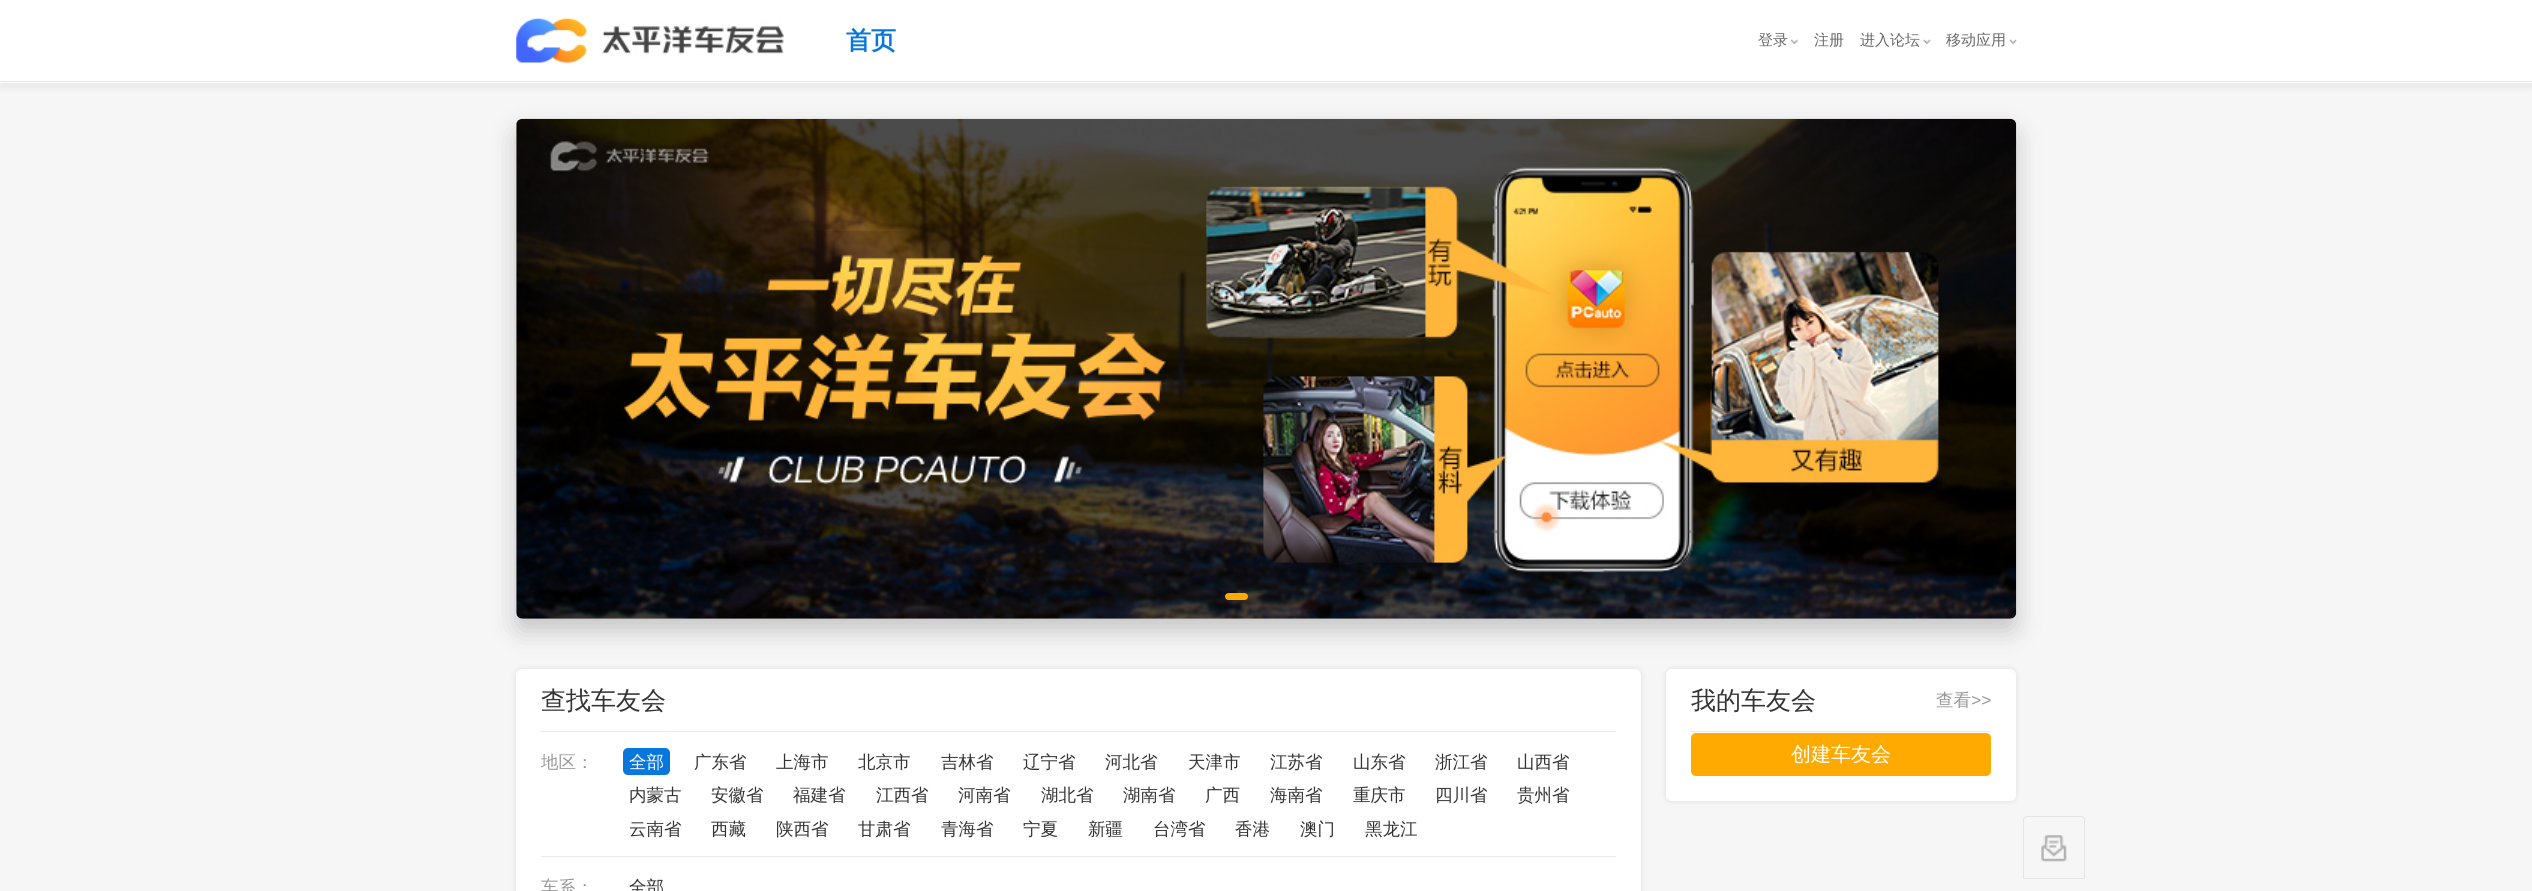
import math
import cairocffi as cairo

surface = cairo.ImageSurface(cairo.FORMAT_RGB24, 2532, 891)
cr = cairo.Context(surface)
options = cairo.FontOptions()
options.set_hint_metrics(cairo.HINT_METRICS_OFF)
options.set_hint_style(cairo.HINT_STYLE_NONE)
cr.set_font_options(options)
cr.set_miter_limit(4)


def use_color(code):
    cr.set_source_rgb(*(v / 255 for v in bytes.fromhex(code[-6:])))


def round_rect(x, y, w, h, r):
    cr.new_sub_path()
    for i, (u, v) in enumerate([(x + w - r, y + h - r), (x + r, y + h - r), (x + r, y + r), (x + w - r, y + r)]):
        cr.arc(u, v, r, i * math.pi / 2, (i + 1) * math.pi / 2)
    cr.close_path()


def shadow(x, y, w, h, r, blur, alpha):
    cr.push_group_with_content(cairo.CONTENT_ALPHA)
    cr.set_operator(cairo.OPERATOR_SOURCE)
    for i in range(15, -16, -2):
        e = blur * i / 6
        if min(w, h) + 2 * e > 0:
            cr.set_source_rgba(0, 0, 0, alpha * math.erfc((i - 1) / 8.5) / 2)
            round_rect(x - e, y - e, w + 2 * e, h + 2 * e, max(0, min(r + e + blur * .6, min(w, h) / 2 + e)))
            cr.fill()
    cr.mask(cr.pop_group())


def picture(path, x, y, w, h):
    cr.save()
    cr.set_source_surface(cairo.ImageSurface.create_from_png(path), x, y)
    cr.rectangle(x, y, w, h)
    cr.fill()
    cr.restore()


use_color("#f6f6f6")
cr.paint()
use_color("#000000")
shadow(0, 6, 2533, 83, 0, 3, 0.05)
use_color("#ffffff")
cr.rectangle(0, 0, 2532, 83)
cr.fill()
use_color("#e5e5e5")
cr.rectangle(0, 81, 2532, 1)
cr.fill()
picture("img1.png", 516, 18, 268, 45)
cr.select_font_face("WenQuanYi Zen Hei", cairo.FONT_SLANT_NORMAL, cairo.FONT_WEIGHT_BOLD)
cr.set_font_size(25)
use_color("#0777dd")
cr.move_to(846, 49)
cr.show_text("首页")
cr.select_font_face("WenQuanYi Zen Hei Medium")
cr.set_font_size(15)
use_color("#666666")
cr.move_to(1758, 45)
cr.show_text("登录")
picture("img2.png", 1791, 39, 8, 5)
cr.move_to(1814, 45)
cr.show_text("注册")
cr.move_to(1860, 45)
cr.show_text("进入论坛")
picture("img3.png", 1923, 39, 8, 5)
cr.move_to(1946, 45)
cr.show_text("移动应用")
picture("img4.png", 2009, 39, 8, 5)
use_color("#000000")
shadow(516, 669, 1125, 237, 6, 3, 0.1)
use_color("#ffffff")
round_rect(516, 669, 1125, 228, 6)
cr.fill()
use_color("#000000")
shadow(1666, 669, 350, 132, 6, 3, 0.1)
use_color("#ffffff")
round_rect(1666, 669, 350, 132, 6)
cr.fill()
use_color("#000000")
shadow(516, 131, 1500, 500, 6, 12.5, 0.2)
picture("img5.png", 516, 118, 1501, 501)
use_color("#ffaa00")
round_rect(1225, 593, 23, 7, 3.5)
cr.fill()
cr.set_font_size(25)
use_color("#333333")
cr.move_to(541, 709)
cr.show_text("查找车友会")
use_color("#e9e9e9")
cr.rectangle(541, 731, 1075, 1)
cr.fill()
cr.set_font_size(17.5)
use_color("#999999")
cr.move_to(541, 768)
cr.show_text("地区：")
use_color("#0777dd")
round_rect(623, 748, 47, 27, 5)
cr.fill()
use_color("#ffffff")
cr.move_to(629, 768)
cr.show_text("全部")
use_color("#333333")
cr.move_to(694, 768)
cr.show_text("广东省")
cr.move_to(776, 768)
cr.show_text("上海市")
cr.move_to(858, 768)
cr.show_text("北京市")
cr.move_to(941, 768)
cr.show_text("吉林省")
cr.move_to(1023, 768)
cr.show_text("辽宁省")
cr.move_to(1105, 768)
cr.show_text("河北省")
cr.move_to(1188, 768)
cr.show_text("天津市")
cr.move_to(1270, 768)
cr.show_text("江苏省")
cr.move_to(1353, 768)
cr.show_text("山东省")
cr.move_to(1435, 768)
cr.show_text("浙江省")
cr.move_to(1517, 768)
cr.show_text("山西省")
cr.move_to(629, 801)
cr.show_text("内蒙古")
cr.move_to(711, 801)
cr.show_text("安徽省")
cr.move_to(793, 801)
cr.show_text("福建省")
cr.move_to(876, 801)
cr.show_text("江西省")
cr.move_to(958, 801)
cr.show_text("河南省")
cr.move_to(1041, 801)
cr.show_text("湖北省")
cr.move_to(1123, 801)
cr.show_text("湖南省")
cr.move_to(1205, 801)
cr.show_text("广西")
cr.move_to(1270, 801)
cr.show_text("海南省")
cr.move_to(1353, 801)
cr.show_text("重庆市")
cr.move_to(1435, 801)
cr.show_text("四川省")
cr.move_to(1517, 801)
cr.show_text("贵州省")
cr.move_to(629, 835)
cr.show_text("云南省")
cr.move_to(711, 835)
cr.show_text("西藏")
cr.move_to(776, 835)
cr.show_text("陕西省")
cr.move_to(858, 835)
cr.show_text("甘肃省")
cr.move_to(941, 835)
cr.show_text("青海省")
cr.move_to(1023, 835)
cr.show_text("宁夏")
cr.move_to(1088, 835)
cr.show_text("新疆")
cr.move_to(1153, 835)
cr.show_text("台湾省")
cr.move_to(1235, 835)
cr.show_text("香港")
cr.move_to(1300, 835)
cr.show_text("澳门")
cr.move_to(1365, 835)
cr.show_text("黑龙江")
use_color("#e9e9e9")
cr.rectangle(541, 856, 1075, 1)
cr.fill()
use_color("#999999")
cr.move_to(541, 893)
cr.show_text("车系：")
use_color("#333333")
cr.move_to(629, 893)
cr.show_text("全部")
use_color("#e9e9e9")
cr.rectangle(1691, 731, 300, 1)
cr.fill()
cr.set_font_size(25)
use_color("#333333")
cr.move_to(1691, 709)
cr.show_text("我的车友会")
cr.set_font_size(17.5)
use_color("#999999")
cr.move_to(1936, 706)
cr.show_text("查看")
cr.select_font_face("Liberation Sans")
cr.move_to(1971, 706)
cr.show_text(">>")
use_color("#ffaa00")
round_rect(1691, 733, 300, 43, 5)
cr.fill()
cr.select_font_face("WenQuanYi Zen Hei Medium")
cr.set_font_size(20)
use_color("#ffffff")
cr.move_to(1791, 761)
cr.show_text("创建车友会")
cr.new_path()
cr.move_to(2027, 816.5)
cr.line_to(2081, 816.5)
cr.curve_to(2083, 816.5, 2084.5, 818, 2084.5, 820)
cr.line_to(2084.5, 878.5)
cr.line_to(2023.5, 878.5)
cr.line_to(2023.5, 820)
cr.curve_to(2023.5, 818, 2025, 816.5, 2027, 816.5)
cr.close_path()
use_color("#e5e5e5")
cr.set_line_width(1)
cr.stroke()
picture("img6.png", 2041, 835, 26, 27)
surface.write_to_png("result.png")
